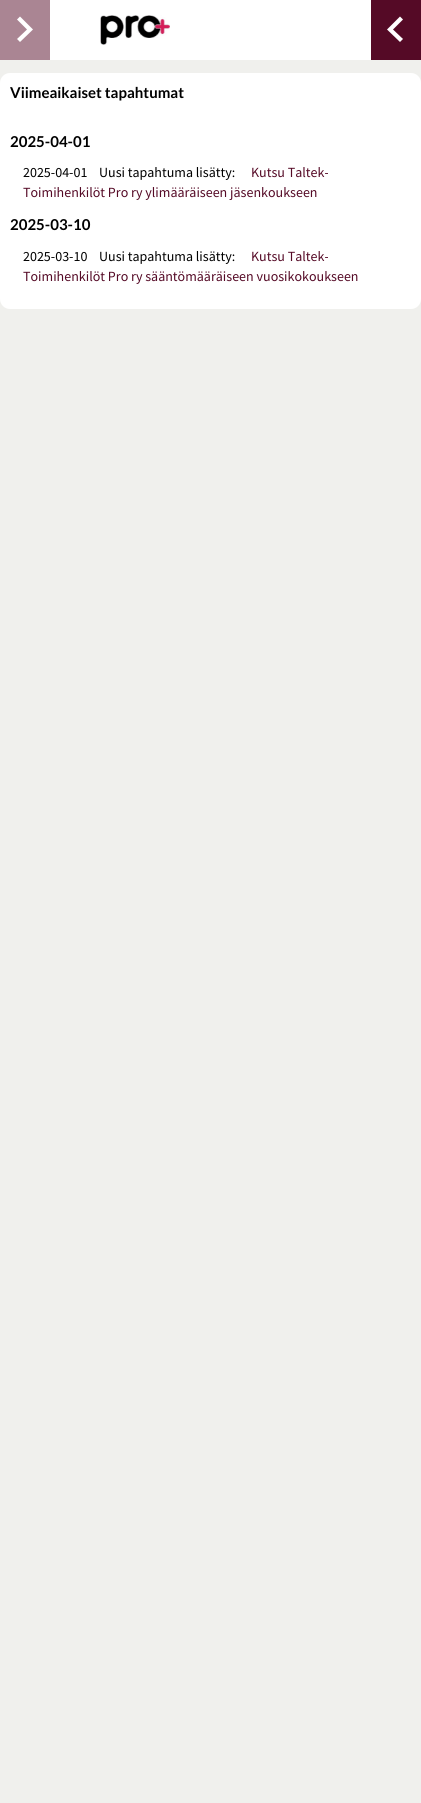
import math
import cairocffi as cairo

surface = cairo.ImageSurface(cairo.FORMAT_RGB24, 421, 1803)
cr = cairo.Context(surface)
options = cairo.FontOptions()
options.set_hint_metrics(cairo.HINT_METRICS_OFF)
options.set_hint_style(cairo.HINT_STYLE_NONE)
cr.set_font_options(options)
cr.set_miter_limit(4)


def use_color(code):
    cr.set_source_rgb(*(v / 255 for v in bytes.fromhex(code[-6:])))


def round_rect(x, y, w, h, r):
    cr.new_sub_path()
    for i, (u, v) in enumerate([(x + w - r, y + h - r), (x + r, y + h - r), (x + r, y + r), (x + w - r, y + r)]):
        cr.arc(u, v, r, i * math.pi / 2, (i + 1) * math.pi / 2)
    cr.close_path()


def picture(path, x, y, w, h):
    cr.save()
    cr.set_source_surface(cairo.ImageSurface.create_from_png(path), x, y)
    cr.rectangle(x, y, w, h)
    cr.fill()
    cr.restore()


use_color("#f0f0ed")
cr.paint()
use_color("#ffffff")
cr.rectangle(50, 0, 321, 60)
cr.fill()
use_color("#aa8593")
cr.rectangle(0, 0, 50, 60)
cr.fill()
use_color("#ffffff")
cr.new_path()
cr.move_to(20, 16.5)
cr.line_to(33, 29.5)
cr.line_to(20, 42)
cr.line_to(17, 39)
cr.line_to(27, 29.5)
cr.line_to(17, 19.5)
cr.close_path()
cr.fill()
picture("img1.png", 100, 15, 70, 30)
use_color("#550a26")
cr.rectangle(371, 0, 50, 60)
cr.fill()
use_color("#ffffff")
cr.new_path()
cr.move_to(403, 19.5)
cr.line_to(393, 29.5)
cr.line_to(403, 39)
cr.line_to(400, 42)
cr.line_to(387, 29.5)
cr.line_to(400, 16.5)
cr.close_path()
cr.fill()
round_rect(0, 73, 421, 236, 10)
cr.fill()
cr.select_font_face("Lato", cairo.FONT_SLANT_NORMAL, cairo.FONT_WEIGHT_BOLD)
cr.set_font_size(15)
use_color("#000000")
cr.move_to(10, 98)
cr.show_text("Viimeaikaiset tapahtumat")
cr.move_to(10, 147)
cr.show_text("2025-04-01")
cr.select_font_face("Source Sans Pro")
cr.set_font_size(14)
cr.move_to(23, 177)
cr.show_text("2025-04-01")
cr.move_to(99, 177)
cr.show_text("Uusi tapahtuma lisätty:")
use_color("#550a26")
cr.move_to(251, 177)
cr.show_text("Kutsu Taltek-")
cr.move_to(23, 197)
cr.show_text("Toimihenkilöt Pro ry ylimääräiseen jäsenkoukseen")
cr.select_font_face("Lato", cairo.FONT_SLANT_NORMAL, cairo.FONT_WEIGHT_BOLD)
cr.set_font_size(15)
use_color("#000000")
cr.move_to(10, 230)
cr.show_text("2025-03-10")
cr.select_font_face("Source Sans Pro")
cr.set_font_size(14)
cr.move_to(23, 261)
cr.show_text("2025-03-10")
cr.move_to(99, 261)
cr.show_text("Uusi tapahtuma lisätty:")
use_color("#550a26")
cr.move_to(251, 261)
cr.show_text("Kutsu Taltek-")
cr.move_to(23, 281)
cr.show_text("Toimihenkilöt Pro ry sääntömääräiseen vuosikokoukseen")
surface.write_to_png("result.png")
